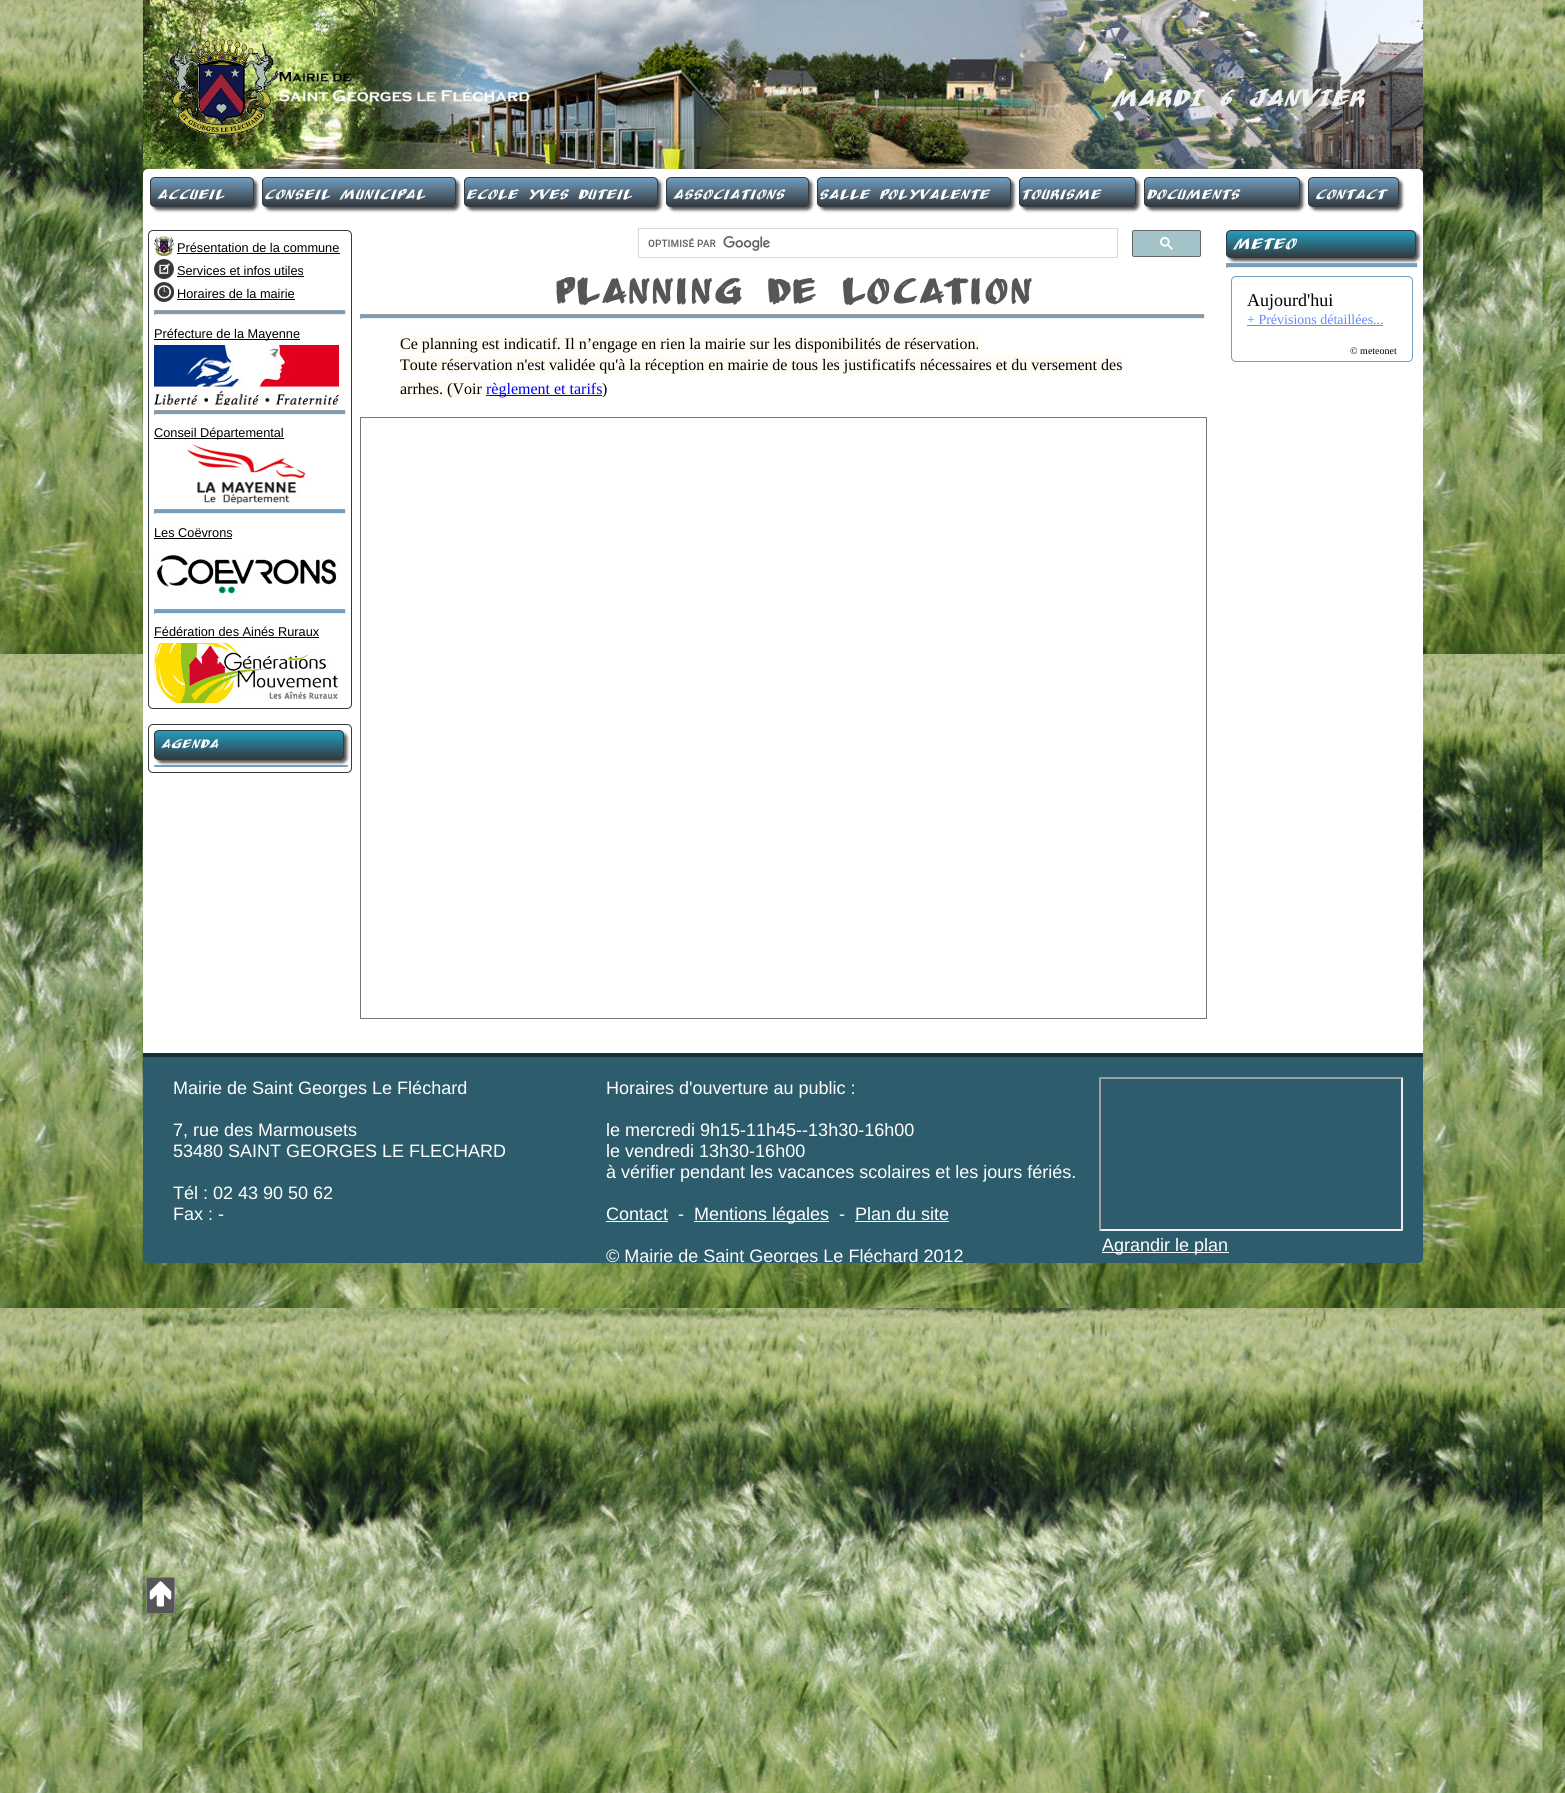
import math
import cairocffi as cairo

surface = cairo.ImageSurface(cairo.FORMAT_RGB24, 1565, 1793)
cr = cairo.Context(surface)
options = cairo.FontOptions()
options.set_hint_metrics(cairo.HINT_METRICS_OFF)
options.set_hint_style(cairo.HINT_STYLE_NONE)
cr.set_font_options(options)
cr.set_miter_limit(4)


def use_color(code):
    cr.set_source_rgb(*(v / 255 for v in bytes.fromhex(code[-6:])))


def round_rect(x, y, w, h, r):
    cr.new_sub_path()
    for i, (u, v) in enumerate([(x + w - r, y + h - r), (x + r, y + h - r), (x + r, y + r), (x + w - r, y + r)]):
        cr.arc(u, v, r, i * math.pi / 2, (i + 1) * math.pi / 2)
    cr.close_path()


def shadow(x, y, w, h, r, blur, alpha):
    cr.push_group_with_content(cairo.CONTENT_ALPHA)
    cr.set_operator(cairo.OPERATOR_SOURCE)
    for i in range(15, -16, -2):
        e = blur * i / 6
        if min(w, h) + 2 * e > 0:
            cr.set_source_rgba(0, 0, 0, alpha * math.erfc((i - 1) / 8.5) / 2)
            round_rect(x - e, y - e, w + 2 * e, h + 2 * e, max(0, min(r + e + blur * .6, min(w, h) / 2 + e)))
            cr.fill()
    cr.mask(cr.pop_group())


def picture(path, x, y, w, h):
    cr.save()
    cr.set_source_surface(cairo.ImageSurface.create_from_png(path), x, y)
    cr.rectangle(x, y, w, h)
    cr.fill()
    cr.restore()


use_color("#ffffff")
cr.paint()
picture("img1.png", 0, 0, 1565, 1793)
picture("img2.png", 143, 0, 1280, 169)
picture("img3.png", 163, 38, 367, 106)
cr.select_font_face("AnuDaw", cairo.FONT_SLANT_ITALIC, cairo.FONT_WEIGHT_BOLD)
cr.set_font_size(20)
use_color("#f0f1f0")
cr.move_to(1110, 106)
cr.show_text("MARDI")
cr.move_to(1217, 106)
cr.show_text("6 JANVIER")
use_color("#565656")
round_rect(146.5, 1577.5, 28, 36, 1.5)
cr.fill_preserve()
use_color("#808080")
cr.set_line_width(1)
cr.stroke()
picture("img4.png", 149, 1581, 23, 26)
use_color("#ffffff")
cr.new_path()
cr.move_to(148, 169)
cr.line_to(1418, 169)
cr.curve_to(1421, 169, 1423, 171, 1423, 174)
cr.line_to(1423, 1054)
cr.line_to(143, 1054)
cr.line_to(143, 174)
cr.curve_to(143, 171, 145, 169, 148, 169)
cr.close_path()
cr.fill()
use_color("#555555")
shadow(153, 180, 104, 30, 5, 1.5, 1)
cr.save()
round_rect(150, 177, 104, 30, 5)
cr.clip()
gradient = cairo.LinearGradient(202, 178, 202, 206)
gradient.add_color_stop_rgba(0, 0.447, 0.62, 0.749, 1)
gradient.add_color_stop_rgba(1, 0.2, 0.227, 0.251, 1)
cr.set_source(gradient)
cr.rectangle(150, 178, 104, 28)
cr.fill()
cr.restore()
round_rect(150.5, 177.5, 103, 29, 4.5)
use_color("#333a40")
cr.stroke()
cr.select_font_face("AnuDaw", cairo.FONT_SLANT_ITALIC)
cr.set_font_size(12)
use_color("#ffffff")
cr.move_to(156, 199)
cr.show_text("Accueil")
use_color("#555555")
shadow(265, 180, 194, 30, 5, 1.5, 1)
cr.save()
round_rect(262, 177, 194, 30, 5)
cr.clip()
gradient = cairo.LinearGradient(359, 178, 359, 206)
gradient.add_color_stop_rgba(0, 0.447, 0.62, 0.749, 1)
gradient.add_color_stop_rgba(1, 0.2, 0.227, 0.251, 1)
cr.set_source(gradient)
cr.rectangle(262, 178, 194, 28)
cr.fill()
cr.restore()
round_rect(262.5, 177.5, 193, 29, 4.5)
use_color("#333a40")
cr.stroke()
use_color("#ffffff")
cr.move_to(263, 199)
cr.show_text("Conseil Municipal")
use_color("#555555")
shadow(467, 180, 194, 30, 5, 1.5, 1)
cr.save()
round_rect(464, 177, 194, 30, 5)
cr.clip()
gradient = cairo.LinearGradient(561, 178, 561, 206)
gradient.add_color_stop_rgba(0, 0.447, 0.62, 0.749, 1)
gradient.add_color_stop_rgba(1, 0.2, 0.227, 0.251, 1)
cr.set_source(gradient)
cr.rectangle(464, 178, 194, 28)
cr.fill()
cr.restore()
round_rect(464.5, 177.5, 193, 29, 4.5)
use_color("#333a40")
cr.stroke()
use_color("#ffffff")
cr.move_to(465, 199)
cr.show_text("Ecole Yves Duteil")
use_color("#555555")
shadow(669, 180, 143, 30, 5, 1.5, 1)
cr.save()
round_rect(666, 177, 143, 30, 5)
cr.clip()
gradient = cairo.LinearGradient(738, 178, 738, 206)
gradient.add_color_stop_rgba(0, 0.447, 0.62, 0.749, 1)
gradient.add_color_stop_rgba(1, 0.2, 0.227, 0.251, 1)
cr.set_source(gradient)
cr.rectangle(666, 178, 143, 28)
cr.fill()
cr.restore()
round_rect(666.5, 177.5, 142, 29, 4.5)
use_color("#333a40")
cr.stroke()
use_color("#ffffff")
cr.move_to(672, 199)
cr.show_text("Associations")
use_color("#555555")
shadow(820, 180, 194, 30, 5, 1.5, 1)
cr.save()
round_rect(817, 177, 194, 30, 5)
cr.clip()
gradient = cairo.LinearGradient(914, 178, 914, 206)
gradient.add_color_stop_rgba(0, 0.447, 0.62, 0.749, 1)
gradient.add_color_stop_rgba(1, 0.2, 0.227, 0.251, 1)
cr.set_source(gradient)
cr.rectangle(817, 178, 194, 28)
cr.fill()
cr.restore()
round_rect(817.5, 177.5, 193, 29, 4.5)
use_color("#333a40")
cr.stroke()
use_color("#ffffff")
cr.move_to(818, 199)
cr.show_text("Salle Polyvalente")
use_color("#555555")
shadow(1022, 180, 117, 30, 5, 1.5, 1)
cr.save()
round_rect(1019, 177, 117, 30, 5)
cr.clip()
gradient = cairo.LinearGradient(1078, 178, 1078, 206)
gradient.add_color_stop_rgba(0, 0.447, 0.62, 0.749, 1)
gradient.add_color_stop_rgba(1, 0.2, 0.227, 0.251, 1)
cr.set_source(gradient)
cr.rectangle(1019, 178, 117, 28)
cr.fill()
cr.restore()
round_rect(1019.5, 177.5, 116, 29, 4.5)
use_color("#333a40")
cr.stroke()
use_color("#ffffff")
cr.move_to(1020, 199)
cr.show_text("Tourisme")
use_color("#555555")
shadow(1147, 180, 156, 30, 5, 1.5, 1)
cr.save()
round_rect(1144, 177, 156, 30, 5)
cr.clip()
gradient = cairo.LinearGradient(1222, 178, 1222, 206)
gradient.add_color_stop_rgba(0, 0.447, 0.62, 0.749, 1)
gradient.add_color_stop_rgba(1, 0.2, 0.227, 0.251, 1)
cr.set_source(gradient)
cr.rectangle(1144, 178, 156, 28)
cr.fill()
cr.restore()
round_rect(1144.5, 177.5, 155, 29, 4.5)
use_color("#333a40")
cr.stroke()
use_color("#ffffff")
cr.move_to(1145, 199)
cr.show_text("Documents")
use_color("#555555")
shadow(1311, 180, 91, 30, 5, 1.5, 1)
cr.save()
round_rect(1308, 177, 91, 30, 5)
cr.clip()
gradient = cairo.LinearGradient(1354, 178, 1354, 206)
gradient.add_color_stop_rgba(0, 0.447, 0.62, 0.749, 1)
gradient.add_color_stop_rgba(1, 0.2, 0.227, 0.251, 1)
cr.set_source(gradient)
cr.rectangle(1308, 178, 91, 28)
cr.fill()
cr.restore()
round_rect(1308.5, 177.5, 90, 29, 4.5)
use_color("#333a40")
cr.stroke()
use_color("#ffffff")
cr.move_to(1314, 199)
cr.show_text("Contact")
round_rect(148.5, 230.5, 203, 478, 4.5)
use_color("#333a40")
cr.stroke()
picture("img5.png", 154, 236, 20, 20)
cr.select_font_face("Liberation Sans")
cr.set_font_size(12.75)
use_color("#000000")
cr.move_to(177, 252)
cr.show_text("Présentation de la commune")
cr.rectangle(177, 253, 163, 1)
cr.fill()
picture("img6.png", 154, 259, 20, 20)
cr.move_to(177, 275)
cr.show_text("Services et infos utiles")
cr.rectangle(177, 276, 127, 1)
cr.fill()
picture("img7.png", 154, 282, 20, 20)
cr.move_to(177, 298)
cr.show_text("Horaires de la mairie")
cr.rectangle(177, 299, 118, 1)
cr.fill()
use_color("#729ebf")
cr.rectangle(154, 311, 192, 3)
cr.fill()
use_color("#9f9f9f")
cr.rectangle(154, 310, 192, 1)
cr.fill()
use_color("#eeeeee")
cr.rectangle(345, 310, 1, 5)
cr.fill()
cr.rectangle(154, 314, 192, 1)
cr.fill()
use_color("#9f9f9f")
cr.rectangle(154, 310, 1, 5)
cr.fill()
use_color("#000000")
cr.rectangle(154, 339, 146, 1)
cr.fill()
cr.move_to(154, 338)
cr.show_text("Préfecture de la Mayenne")
picture("img8.png", 154, 345, 185, 60)
use_color("#729ebf")
cr.rectangle(154, 411, 192, 3)
cr.fill()
use_color("#9f9f9f")
cr.rectangle(154, 410, 192, 1)
cr.fill()
use_color("#eeeeee")
cr.rectangle(345, 410, 1, 5)
cr.fill()
cr.rectangle(154, 414, 192, 1)
cr.fill()
use_color("#9f9f9f")
cr.rectangle(154, 410, 1, 5)
cr.fill()
use_color("#000000")
cr.rectangle(154, 438, 130, 1)
cr.fill()
cr.move_to(154, 437)
cr.show_text("Conseil Départemental")
picture("img9.png", 187, 444, 119, 60)
use_color("#729ebf")
cr.rectangle(154, 510, 192, 3)
cr.fill()
use_color("#9f9f9f")
cr.rectangle(154, 509, 192, 1)
cr.fill()
use_color("#eeeeee")
cr.rectangle(345, 509, 1, 5)
cr.fill()
cr.rectangle(154, 513, 192, 1)
cr.fill()
use_color("#9f9f9f")
cr.rectangle(154, 509, 1, 5)
cr.fill()
use_color("#000000")
cr.move_to(154, 537)
cr.show_text("Les Coëvrons")
cr.rectangle(154, 538, 78, 1)
cr.fill()
picture("img10.png", 154, 552, 184, 48)
use_color("#729ebf")
cr.rectangle(154, 610, 192, 3)
cr.fill()
use_color("#9f9f9f")
cr.rectangle(154, 609, 192, 1)
cr.fill()
use_color("#eeeeee")
cr.rectangle(345, 609, 1, 5)
cr.fill()
cr.rectangle(154, 613, 192, 1)
cr.fill()
use_color("#9f9f9f")
cr.rectangle(154, 609, 1, 5)
cr.fill()
use_color("#000000")
cr.move_to(154, 636)
cr.show_text("Fédération des Ainés Ruraux")
cr.rectangle(154, 637, 165, 1)
cr.fill()
picture("img11.png", 154, 643, 184, 60)
round_rect(148.5, 724.5, 203, 48, 4.5)
use_color("#333a40")
cr.stroke()
use_color("#555555")
shadow(157, 733, 190, 30, 5, 1.5, 1)
cr.save()
round_rect(154, 730, 190, 30, 5)
cr.clip()
gradient = cairo.LinearGradient(249, 731, 249, 759)
gradient.add_color_stop_rgba(0, 0.133, 0.62, 0.749, 1)
gradient.add_color_stop_rgba(1, 0.2, 0.227, 0.251, 1)
cr.set_source(gradient)
cr.rectangle(154, 731, 190, 28)
cr.fill()
cr.restore()
round_rect(154.5, 730.5, 189, 29, 4.5)
use_color("#333a40")
cr.stroke()
cr.select_font_face("AnuDaw", cairo.FONT_SLANT_ITALIC)
cr.set_font_size(11)
use_color("#ffffff")
cr.move_to(160, 748)
cr.show_text("AGENDA")
use_color("#729ebf")
round_rect(154, 765, 194, 2, 1)
cr.fill()
cr.rectangle(638.5, 228.5, 479, 29)
use_color("#d9d9d9")
cr.stroke()
picture("img12.png", 648, 236, 122, 15)
use_color("#a2c4c9")
round_rect(1132.5, 230.5, 68, 26, 1.5)
cr.fill_preserve()
use_color("#666666")
cr.stroke()
picture("img13.png", 1160, 237, 13, 13)
cr.select_font_face("AnuDaw", cairo.FONT_SLANT_NORMAL, cairo.FONT_WEIGHT_BOLD)
cr.set_font_size(30)
use_color("#565656")
cr.move_to(553, 303)
cr.show_text("Planning de location")
use_color("#729ebf")
cr.rectangle(360, 315, 845, 3)
cr.fill()
use_color("#9f9f9f")
cr.rectangle(360, 314, 845, 1)
cr.fill()
use_color("#eeeeee")
cr.rectangle(1204, 314, 1, 5)
cr.fill()
cr.rectangle(360, 318, 845, 1)
cr.fill()
use_color("#9f9f9f")
cr.rectangle(360, 314, 1, 5)
cr.fill()
use_color("#fefbf3")
cr.rectangle(400, 335, 579, 17)
cr.fill()
cr.select_font_face("Liberation Serif")
cr.set_font_size(16)
use_color("#000000")
cr.move_to(400, 349)
cr.show_text("Ce planning est indicatif. Il n’engage en rien la mairie sur les disponibilités de réservation.")
use_color("#fefbf3")
cr.rectangle(400, 356, 722, 17)
cr.fill()
use_color("#000000")
cr.move_to(400, 370)
cr.show_text("Toute réservation n'est validée qu'à la réception en mairie de tous les justificatifs nécessaires et du versement des")
use_color("#fefbf3")
cr.rectangle(400, 380, 86, 17)
cr.fill()
use_color("#000000")
cr.move_to(400, 394)
cr.show_text("arrhes. (Voir")
use_color("#0000ee")
cr.rectangle(486, 395, 116, 1)
cr.fill()
cr.move_to(486, 394)
cr.show_text("règlement et tarifs")
use_color("#000000")
cr.move_to(602, 394)
cr.show_text(")")
cr.rectangle(360.5, 417.5, 846, 601)
use_color("#777777")
cr.stroke()
use_color("#555555")
shadow(1229, 233, 190, 28, 5, 1.5, 1)
cr.save()
round_rect(1226, 230, 190, 28, 5)
cr.clip()
gradient = cairo.LinearGradient(1321, 231, 1321, 257)
gradient.add_color_stop_rgba(0, 0.133, 0.62, 0.749, 1)
gradient.add_color_stop_rgba(1, 0.2, 0.227, 0.251, 1)
cr.set_source(gradient)
cr.rectangle(1226, 231, 190, 26)
cr.fill()
cr.restore()
round_rect(1226.5, 230.5, 189, 27, 4.5)
use_color("#333a40")
cr.stroke()
cr.select_font_face("AnuDaw", cairo.FONT_SLANT_ITALIC)
cr.set_font_size(13.5)
use_color("#ffffff")
cr.move_to(1232, 249)
cr.show_text("Meteo")
use_color("#729ebf")
cr.rectangle(1226, 264, 192, 3)
cr.fill()
use_color("#9f9f9f")
cr.rectangle(1226, 263, 192, 1)
cr.fill()
use_color("#eeeeee")
cr.rectangle(1417, 263, 1, 5)
cr.fill()
cr.rectangle(1226, 267, 192, 1)
cr.fill()
use_color("#9f9f9f")
cr.rectangle(1226, 263, 1, 5)
cr.fill()
round_rect(1231.5, 276.5, 181, 85, 4.5)
use_color("#729ebf")
cr.stroke()
cr.select_font_face("Liberation Serif")
cr.set_font_size(18)
use_color("#000000")
cr.move_to(1247, 306)
cr.show_text("Aujourd'hui")
cr.set_font_size(14)
use_color("#6688ff")
cr.move_to(1247, 324)
cr.show_text("+ Prévisions détaillées...")
cr.rectangle(1247, 325, 136, 1)
cr.fill()
cr.set_font_size(10)
use_color("#000000")
cr.move_to(1350, 354)
cr.show_text("© meteonet")
use_color("#2d5d6c")
cr.new_path()
cr.move_to(143, 1053)
cr.line_to(1423, 1053)
cr.line_to(1423, 1258)
cr.curve_to(1423, 1261, 1421, 1263, 1418, 1263)
cr.line_to(148, 1263)
cr.curve_to(145, 1263, 143, 1261, 143, 1258)
cr.close_path()
cr.fill()
use_color("#172f36")
cr.rectangle(143, 1053, 1280, 4)
cr.fill()
cr.select_font_face("Liberation Sans")
cr.set_font_size(18)
use_color("#ffffff")
cr.move_to(173, 1094)
cr.show_text("Mairie de Saint Georges Le Fléchard")
cr.move_to(173, 1136)
cr.show_text("7, rue des Marmousets")
cr.move_to(173, 1157)
cr.show_text("53480 SAINT GEORGES LE FLECHARD")
cr.move_to(173, 1199)
cr.show_text("Tél : 02 43 90 50 62")
cr.move_to(173, 1220)
cr.show_text("Fax : -")
cr.move_to(606, 1094)
cr.show_text("Horaires d'ouverture au public :")
cr.move_to(606, 1136)
cr.show_text("le mercredi 9h15-11h45--13h30-16h00")
cr.move_to(606, 1157)
cr.show_text("le vendredi 13h30-16h00")
cr.move_to(606, 1178)
cr.show_text("à vérifier pendant les vacances scolaires et les jours fériés.")
cr.move_to(606, 1220)
cr.show_text("Contact")
cr.rectangle(606, 1221, 62, 1)
cr.fill()
cr.move_to(678, 1220)
cr.show_text("-")
cr.rectangle(694, 1221, 135, 1)
cr.fill()
cr.move_to(694, 1220)
cr.show_text("Mentions légales")
cr.move_to(839, 1220)
cr.show_text("-")
cr.move_to(855, 1220)
cr.show_text("Plan du site")
cr.rectangle(855, 1221, 94, 1)
cr.fill()
cr.save()
cr.new_path()
cr.move_to(143, 1053)
cr.line_to(1423, 1053)
cr.line_to(1423, 1258)
cr.curve_to(1423, 1261, 1421, 1263, 1418, 1263)
cr.line_to(148, 1263)
cr.curve_to(145, 1263, 143, 1261, 143, 1258)
cr.close_path()
cr.clip()
cr.move_to(606, 1262)
cr.show_text("© Mairie de Saint Georges Le Fléchard 2012")
cr.restore()
use_color("#9f9f9f")
cr.new_path()
cr.move_to(1099, 1077)
cr.line_to(1403, 1077)
cr.line_to(1401, 1079)
cr.line_to(1101, 1079)
cr.close_path()
cr.fill()
use_color("#eeeeee")
cr.new_path()
cr.move_to(1403, 1077)
cr.line_to(1403, 1231)
cr.line_to(1401, 1229)
cr.line_to(1401, 1079)
cr.close_path()
cr.fill()
cr.new_path()
cr.move_to(1403, 1231)
cr.line_to(1099, 1231)
cr.line_to(1101, 1229)
cr.line_to(1401, 1229)
cr.close_path()
cr.fill()
use_color("#9f9f9f")
cr.new_path()
cr.move_to(1099, 1231)
cr.line_to(1099, 1077)
cr.line_to(1101, 1079)
cr.line_to(1101, 1229)
cr.close_path()
cr.fill()
use_color("#ffffff")
cr.rectangle(1102, 1252, 127, 1)
cr.fill()
cr.move_to(1102, 1251)
cr.show_text("Agrandir le plan")
surface.write_to_png("result.png")
